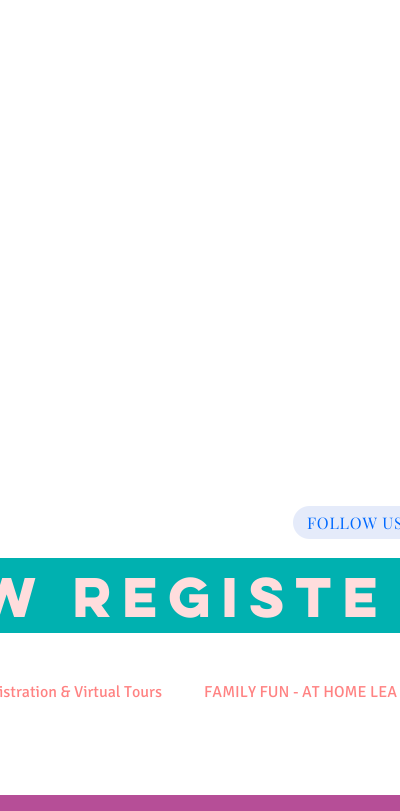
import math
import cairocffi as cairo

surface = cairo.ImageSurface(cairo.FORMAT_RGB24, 400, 811)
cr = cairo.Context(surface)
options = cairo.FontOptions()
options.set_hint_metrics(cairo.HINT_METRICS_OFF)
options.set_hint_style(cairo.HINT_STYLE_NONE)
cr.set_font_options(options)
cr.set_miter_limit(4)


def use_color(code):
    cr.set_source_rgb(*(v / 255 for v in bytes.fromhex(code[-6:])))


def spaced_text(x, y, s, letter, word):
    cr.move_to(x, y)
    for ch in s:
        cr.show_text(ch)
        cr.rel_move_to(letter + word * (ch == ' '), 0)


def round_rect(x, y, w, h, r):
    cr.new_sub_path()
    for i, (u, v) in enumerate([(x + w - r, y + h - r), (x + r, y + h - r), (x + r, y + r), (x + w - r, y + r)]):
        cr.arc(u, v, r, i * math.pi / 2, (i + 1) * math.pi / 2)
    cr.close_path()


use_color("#ffffff")
cr.paint()
use_color("#e5ebfa")
round_rect(293, 506, 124, 33, 16.5)
cr.fill()
cr.select_font_face("Playfair Display")
cr.set_font_size(16)
use_color("#0069ff")
spaced_text(307, 529, "FOLLOW US", 0.75, 0)
use_color("#00b1b0")
cr.rectangle(0, 558, 400, 75)
cr.fill()
cr.select_font_face("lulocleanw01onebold", cairo.FONT_SLANT_NORMAL, cairo.FONT_WEIGHT_BOLD)
cr.set_font_size(50)
use_color("#ffdddd")
cr.move_to(-22, 617)
cr.show_text("W REGISTE")
cr.select_font_face("Signika")
cr.set_font_size(16)
use_color("#ff8282")
cr.move_to(-1, 697)
cr.show_text("istration & Virtual Tours")
cr.move_to(204, 697)
cr.show_text("FAMILY FUN - AT HOME LEA")
use_color("#b64e97")
cr.rectangle(0, 795, 400, 16)
cr.fill()
surface.write_to_png("result.png")
